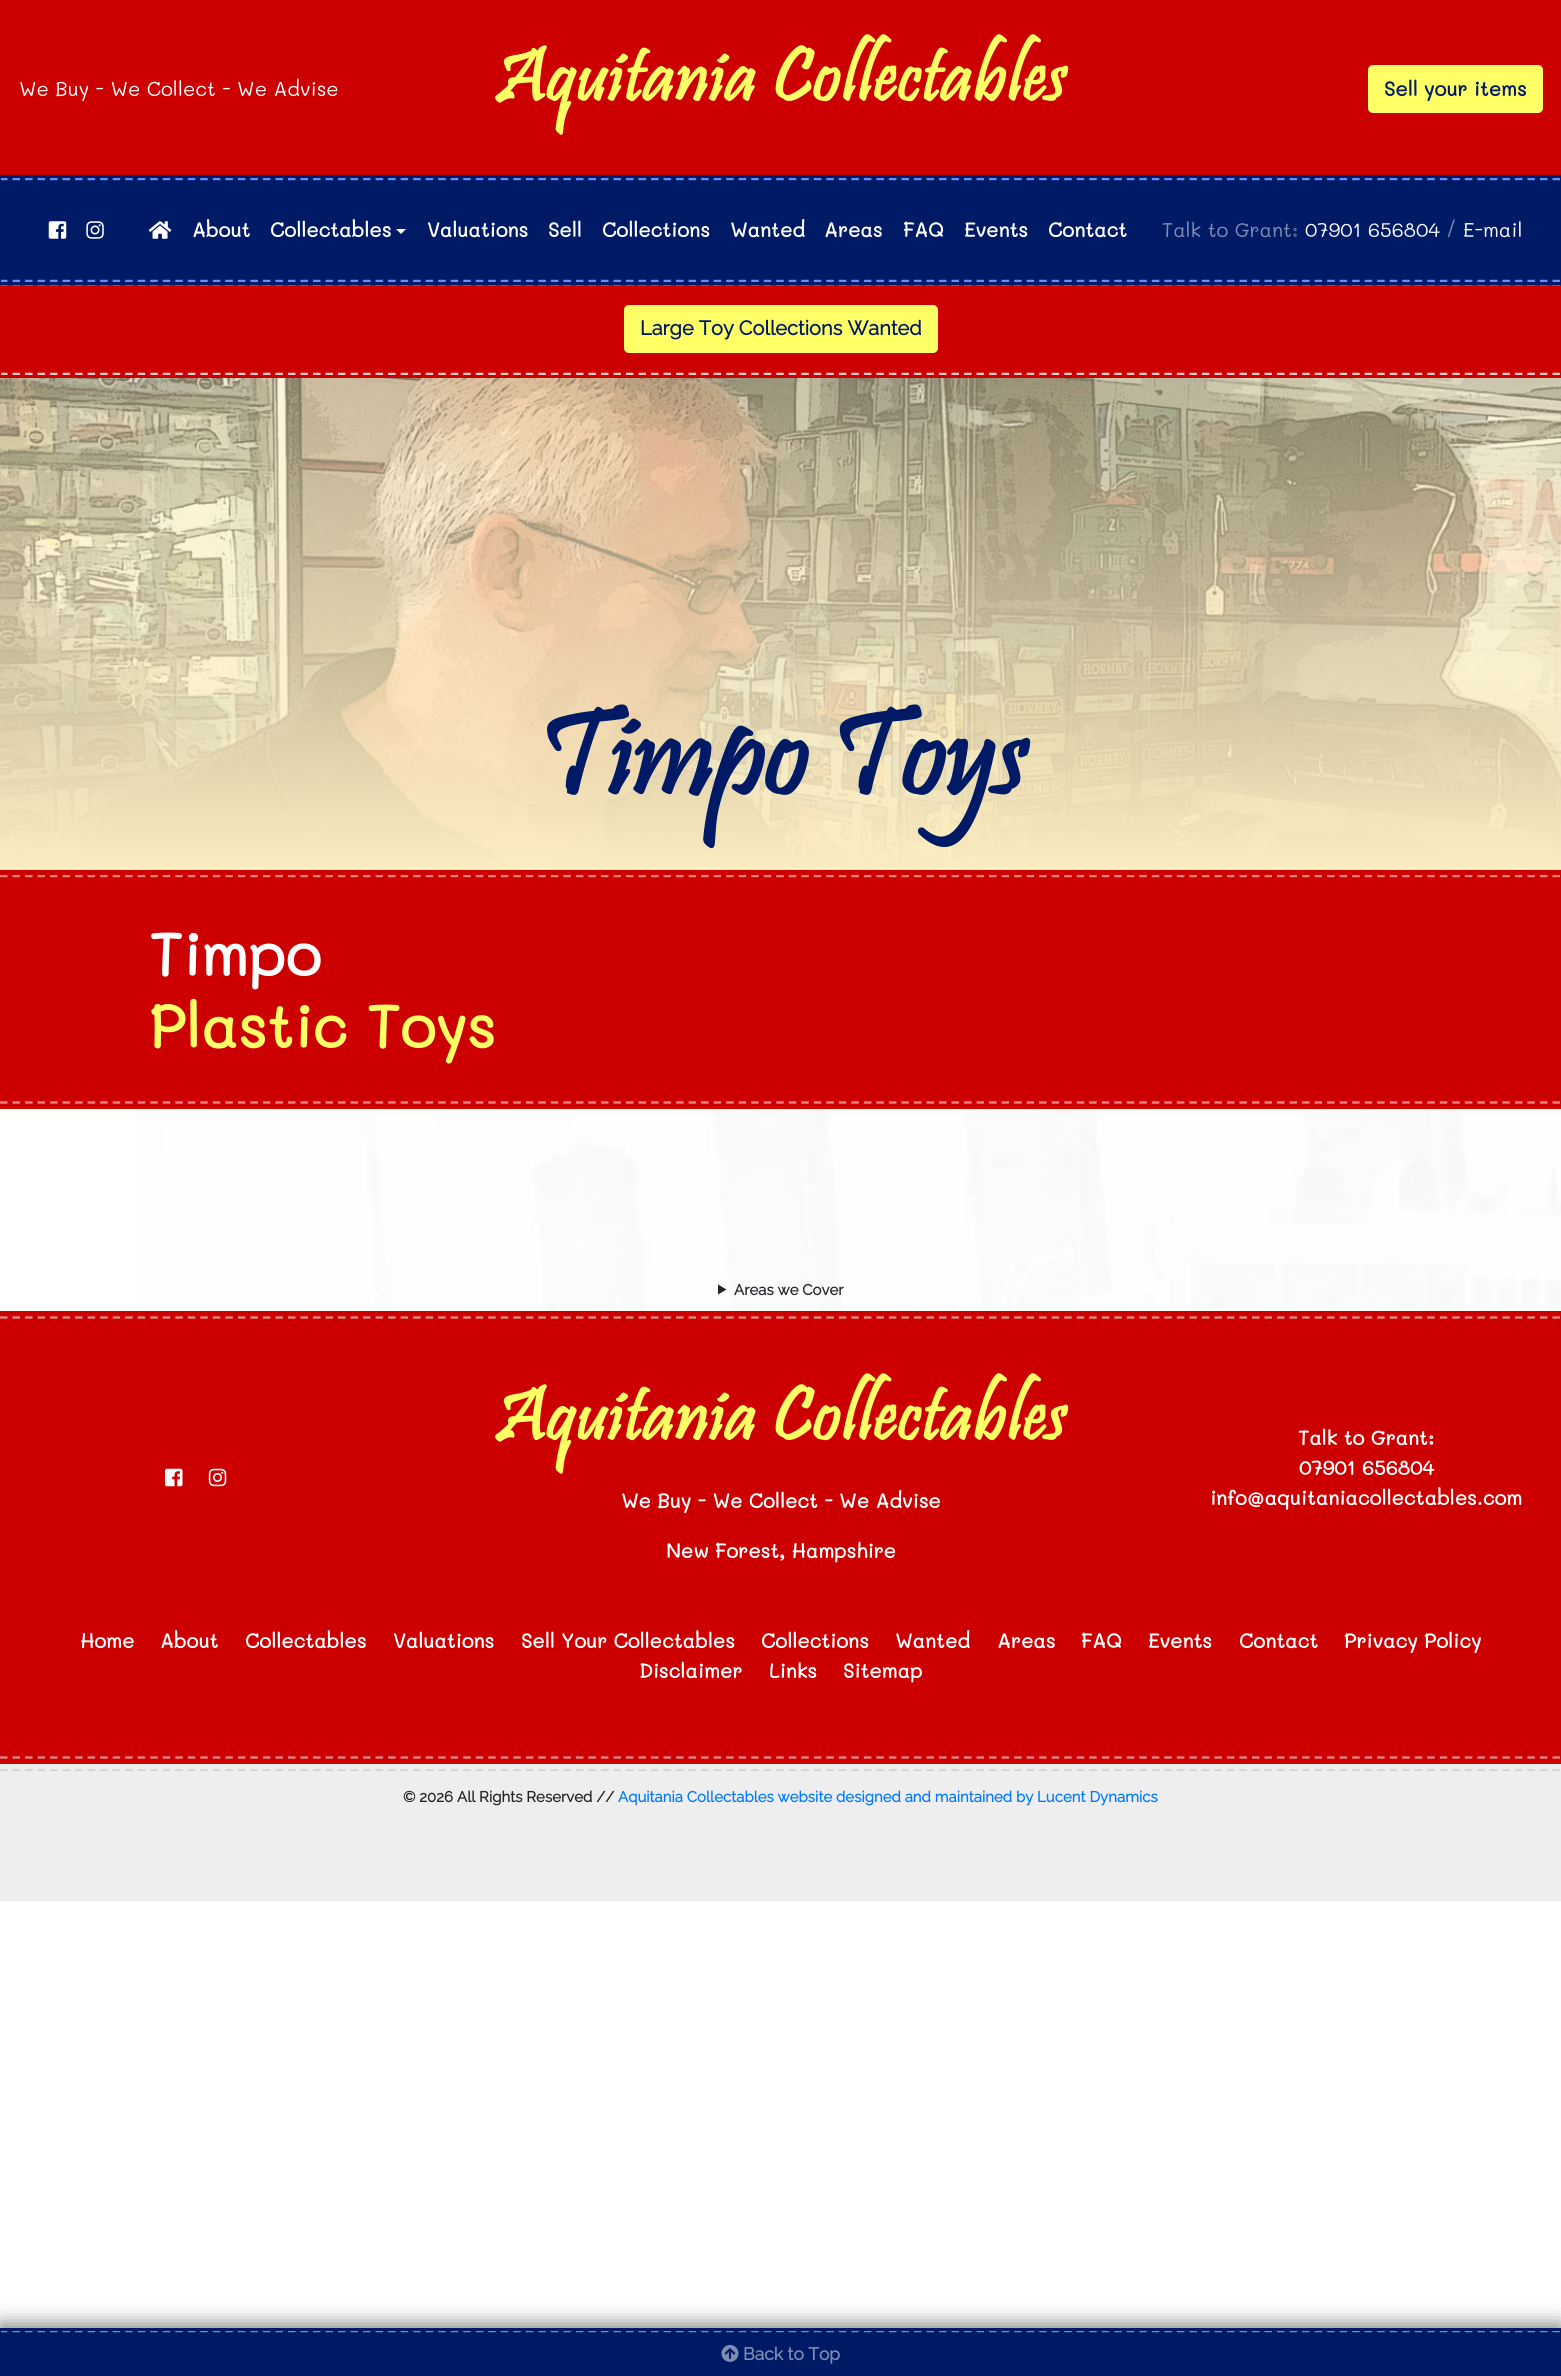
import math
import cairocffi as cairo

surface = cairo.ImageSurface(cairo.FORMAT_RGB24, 1561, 2376)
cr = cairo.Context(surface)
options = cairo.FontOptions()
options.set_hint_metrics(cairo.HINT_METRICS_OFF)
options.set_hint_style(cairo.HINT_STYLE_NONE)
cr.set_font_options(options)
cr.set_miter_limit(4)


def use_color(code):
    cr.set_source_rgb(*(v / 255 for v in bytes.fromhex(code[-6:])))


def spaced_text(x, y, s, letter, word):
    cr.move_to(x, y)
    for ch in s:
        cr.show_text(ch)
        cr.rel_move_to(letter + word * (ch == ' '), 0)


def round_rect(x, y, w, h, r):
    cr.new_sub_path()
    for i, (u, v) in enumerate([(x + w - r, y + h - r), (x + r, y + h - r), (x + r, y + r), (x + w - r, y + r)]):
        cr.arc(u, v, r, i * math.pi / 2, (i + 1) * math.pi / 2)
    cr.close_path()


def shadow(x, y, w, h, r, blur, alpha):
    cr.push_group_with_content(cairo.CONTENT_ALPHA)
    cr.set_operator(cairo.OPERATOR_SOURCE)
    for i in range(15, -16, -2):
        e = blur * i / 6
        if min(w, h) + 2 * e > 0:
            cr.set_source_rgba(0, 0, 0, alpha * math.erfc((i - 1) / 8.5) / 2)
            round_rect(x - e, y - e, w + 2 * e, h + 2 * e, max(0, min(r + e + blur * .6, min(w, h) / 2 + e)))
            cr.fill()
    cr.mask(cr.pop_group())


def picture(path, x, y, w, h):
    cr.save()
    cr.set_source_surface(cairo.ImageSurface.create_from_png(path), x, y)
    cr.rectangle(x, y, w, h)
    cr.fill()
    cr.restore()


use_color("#ffffff")
cr.paint()
picture("img1.png", 136, 1109, 1425, 202)
use_color("#cc0000")
cr.rectangle(0, 0, 1561, 175)
cr.fill()
cr.select_font_face("Mali")
cr.set_font_size(20)
use_color("#ffffff")
cr.move_to(19, 96)
cr.show_text("We Buy - We Collect - We Advise")
cr.select_font_face("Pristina", cairo.FONT_SLANT_NORMAL, cairo.FONT_WEIGHT_BOLD)
cr.set_font_size(78)
use_color("#ffff66")
spaced_text(495, 100, "Aquitania Collectables", 1.25, 0)
round_rect(1368.5, 65.5, 174, 47, 4.5)
cr.fill_preserve()
cr.set_line_width(1)
cr.stroke()
cr.select_font_face("Mali", cairo.FONT_SLANT_NORMAL, cairo.FONT_WEIGHT_BOLD)
cr.set_font_size(20)
use_color("#001a66")
cr.move_to(1384, 96)
cr.show_text("Sell your items")
use_color("#cc0000")
cr.rectangle(1, 285, 1560, 90)
cr.fill()
cr.new_path()
cr.move_to(0, 284)
cr.line_to(1561, 284)
use_color("#ffcccc")
cr.set_line_width(2.5)
cr.set_dash([7.5, 5.02])
cr.stroke()
cr.new_path()
cr.move_to(0, 374)
cr.line_to(1561, 374)
cr.stroke()
cr.rectangle(-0.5, 281.5, 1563, 95)
use_color("#cc0000")
cr.set_line_width(3)
cr.set_dash([])
cr.stroke()
use_color("#001a66")
cr.rectangle(1, 178, 1560, 104)
cr.fill()
cr.new_path()
cr.move_to(0, 179)
cr.line_to(1561, 179)
use_color("#668dff")
cr.set_line_width(2.5)
cr.set_dash([7.5, 5.02])
cr.stroke()
cr.new_path()
cr.move_to(0, 281)
cr.line_to(1561, 281)
cr.stroke()
picture("img2.png", 48, 221, 19, 18)
picture("img3.png", 86, 221, 18, 18)
picture("img4.png", 148, 221, 24, 18)
cr.rectangle(-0.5, 176.5, 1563, 107)
use_color("#001a66")
cr.set_line_width(3)
cr.set_dash([])
cr.stroke()
use_color("#ffffff")
cr.move_to(192, 237)
cr.show_text("About")
cr.move_to(270, 237)
cr.show_text("Collectables")
cr.new_path()
cr.move_to(396, 229)
cr.line_to(406, 229)
cr.line_to(401, 234)
cr.close_path()
cr.fill()
cr.move_to(427, 237)
cr.show_text("Valuations")
cr.move_to(548, 237)
cr.show_text("Sell")
cr.move_to(602, 237)
cr.show_text("Collections")
cr.move_to(730, 237)
cr.show_text("Wanted")
cr.move_to(824, 237)
cr.show_text("Areas")
cr.move_to(903, 237)
cr.show_text("FAQ")
cr.move_to(964, 237)
cr.show_text("Events")
cr.move_to(1048, 237)
cr.show_text("Contact")
cr.select_font_face("Mali")
use_color("#808db3")
cr.move_to(1162, 237)
cr.show_text("Talk to Grant:")
use_color("#ffffff")
cr.move_to(1305, 237)
cr.show_text("07901 656804")
use_color("#808db3")
cr.move_to(1446, 237)
cr.show_text("/")
use_color("#ffffff")
cr.move_to(1463, 237)
cr.show_text("E-mail")
use_color("#ffff66")
round_rect(624.5, 305.5, 313, 47, 4.5)
cr.fill_preserve()
cr.set_line_width(1)
cr.stroke()
cr.select_font_face("Raleway", cairo.FONT_SLANT_NORMAL, cairo.FONT_WEIGHT_BOLD)
use_color("#001a66")
cr.move_to(640, 335)
cr.show_text("Large Toy Collections Wanted")
picture("img5.png", 0, 378, 1561, 492)
cr.select_font_face("Pristina", cairo.FONT_SLANT_NORMAL, cairo.FONT_WEIGHT_BOLD)
cr.set_font_size(125)
cr.move_to(537, 793)
cr.show_text("Timpo Toys")
use_color("#cc0000")
cr.rectangle(0, 875, 1561, 229)
cr.fill()
cr.new_path()
cr.move_to(0, 876)
cr.line_to(1561, 876)
use_color("#e68080")
cr.set_line_width(2.5)
cr.set_dash([7.5, 5.02])
cr.stroke()
cr.new_path()
cr.move_to(0, 1102.5)
cr.line_to(1561, 1102.5)
cr.stroke()
cr.rectangle(-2.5, 872.5, 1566, 234)
use_color("#cc0000")
cr.set_line_width(5)
cr.set_dash([])
cr.stroke()
cr.select_font_face("Mali", cairo.FONT_SLANT_NORMAL, cairo.FONT_WEIGHT_BOLD)
cr.set_font_size(60)
use_color("#ffffff")
cr.move_to(149, 976)
cr.show_text("Timpo")
use_color("#ffff66")
cr.move_to(149, 1048)
cr.show_text("Plastic Toys")
use_color("#212529")
cr.new_path()
cr.move_to(718, 1284.5)
cr.line_to(726.5, 1289.5)
cr.line_to(718, 1294.5)
cr.close_path()
cr.fill()
cr.select_font_face("Raleway", cairo.FONT_SLANT_NORMAL, cairo.FONT_WEIGHT_BOLD)
cr.set_font_size(15)
cr.move_to(734, 1295)
cr.show_text("Areas we Cover")
use_color("#cc0000")
cr.rectangle(0, 1316, 1561, 443)
cr.fill()
cr.new_path()
cr.move_to(0, 1317.5)
cr.line_to(1561, 1317.5)
use_color("#e68080")
cr.set_line_width(2.5)
cr.set_dash([7.5, 5.02])
cr.stroke()
cr.new_path()
cr.move_to(0, 1757.5)
cr.line_to(1561, 1757.5)
cr.stroke()
cr.rectangle(-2.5, 1313.5, 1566, 448)
use_color("#cc0000")
cr.set_line_width(5)
cr.set_dash([])
cr.stroke()
picture("img6.png", 165, 1468, 18, 19)
picture("img7.png", 208, 1468, 19, 19)
cr.select_font_face("Pristina", cairo.FONT_SLANT_NORMAL, cairo.FONT_WEIGHT_BOLD)
cr.set_font_size(78)
use_color("#ffff66")
spaced_text(495, 1439, "Aquitania Collectables", 1.25, 0)
cr.select_font_face("Mali", cairo.FONT_SLANT_NORMAL, cairo.FONT_WEIGHT_BOLD)
cr.set_font_size(20)
use_color("#ffffff")
cr.move_to(621, 1508)
cr.show_text("We Buy - We Collect - We Advise")
cr.move_to(666, 1558)
cr.show_text("New Forest, Hampshire")
cr.move_to(1298, 1445)
cr.show_text("Talk to Grant:")
cr.move_to(1299, 1475)
cr.show_text("07901 656804")
cr.move_to(1210, 1505)
cr.show_text("info@aquitaniacollectables.com")
cr.move_to(80, 1648)
cr.show_text("Home")
cr.move_to(160, 1648)
cr.show_text("About")
cr.move_to(245, 1648)
cr.show_text("Collectables")
cr.move_to(393, 1648)
cr.show_text("Valuations")
cr.move_to(521, 1648)
cr.show_text("Sell Your Collectables")
cr.move_to(761, 1648)
cr.show_text("Collections")
cr.move_to(895, 1648)
cr.show_text("Wanted")
cr.move_to(997, 1648)
cr.show_text("Areas")
cr.move_to(1081, 1648)
cr.show_text("FAQ")
cr.move_to(1148, 1648)
cr.show_text("Events")
cr.move_to(1239, 1648)
cr.show_text("Contact")
cr.move_to(1344, 1648)
cr.show_text("Privacy Policy")
cr.move_to(639, 1678)
cr.show_text("Disclaimer")
cr.move_to(769, 1678)
cr.show_text("Links")
cr.move_to(843, 1678)
cr.show_text("Sitemap")
use_color("#eeeeee")
cr.rectangle(0, 1769, 1561, 127)
cr.fill()
cr.new_path()
cr.move_to(0, 1770)
cr.line_to(1561, 1770)
use_color("#d6d6d6")
cr.set_line_width(2.5)
cr.set_dash([7.5, 5.02])
cr.stroke()
cr.rectangle(-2.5, 1766.5, 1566, 132)
use_color("#eeeeee")
cr.set_line_width(5)
cr.set_dash([])
cr.stroke()
cr.select_font_face("Raleway", cairo.FONT_SLANT_NORMAL, cairo.FONT_WEIGHT_BOLD)
cr.set_font_size(15)
use_color("#212529")
cr.move_to(403, 1802)
cr.show_text("© 2026 All Rights Reserved //")
use_color("#007bff")
cr.move_to(618, 1802)
cr.show_text("Aquitania Collectables website designed and maintained by Lucent Dynamics")
use_color("#000000")
shadow(0, 2324, 1561, 46, 0, 9.5, 0.5)
use_color("#001a66")
cr.rectangle(1, 2331, 1560, 45)
cr.fill()
cr.new_path()
cr.move_to(0, 2331)
cr.line_to(1561, 2331)
use_color("#808db3")
cr.set_line_width(2.5)
cr.set_dash([7.5, 5.02])
cr.stroke()
picture("img8.png", 721, 2345, 18, 17)
cr.rectangle(-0.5, 2329.5, 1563, 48)
use_color("#001a66")
cr.set_line_width(3)
cr.set_dash([])
cr.stroke()
cr.set_font_size(17.5)
use_color("#808db3")
cr.move_to(743, 2360)
cr.show_text("Back to Top")
surface.write_to_png("result.png")
